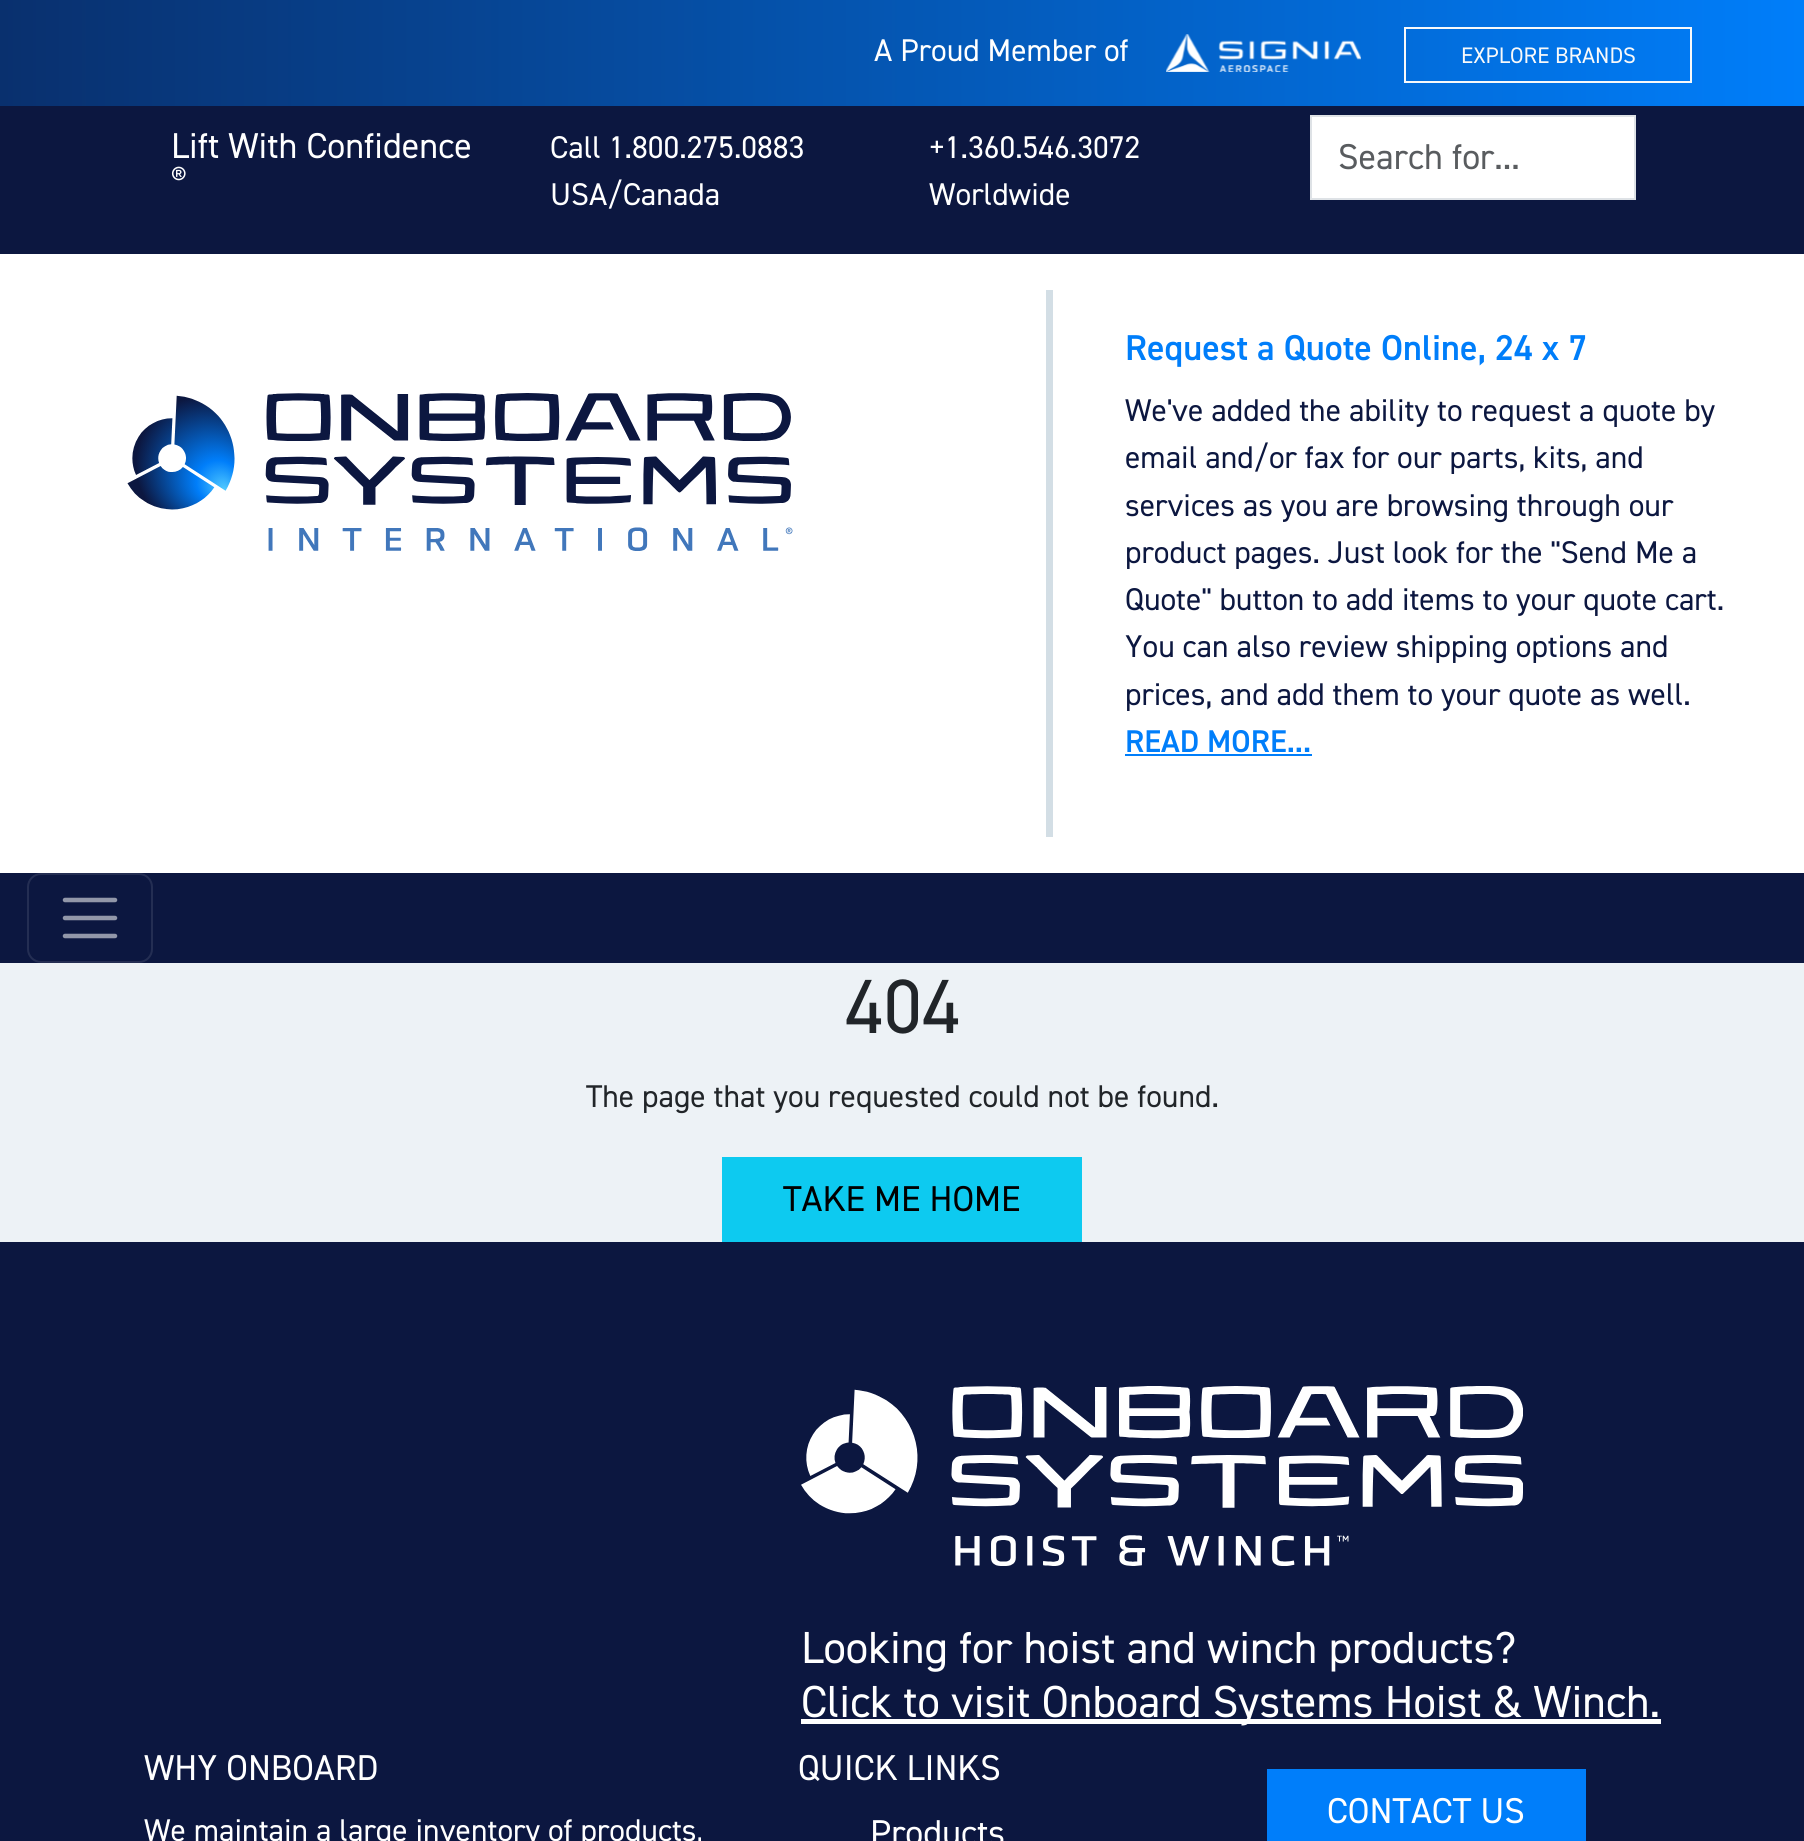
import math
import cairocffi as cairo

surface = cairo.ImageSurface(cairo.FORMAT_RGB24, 1804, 1841)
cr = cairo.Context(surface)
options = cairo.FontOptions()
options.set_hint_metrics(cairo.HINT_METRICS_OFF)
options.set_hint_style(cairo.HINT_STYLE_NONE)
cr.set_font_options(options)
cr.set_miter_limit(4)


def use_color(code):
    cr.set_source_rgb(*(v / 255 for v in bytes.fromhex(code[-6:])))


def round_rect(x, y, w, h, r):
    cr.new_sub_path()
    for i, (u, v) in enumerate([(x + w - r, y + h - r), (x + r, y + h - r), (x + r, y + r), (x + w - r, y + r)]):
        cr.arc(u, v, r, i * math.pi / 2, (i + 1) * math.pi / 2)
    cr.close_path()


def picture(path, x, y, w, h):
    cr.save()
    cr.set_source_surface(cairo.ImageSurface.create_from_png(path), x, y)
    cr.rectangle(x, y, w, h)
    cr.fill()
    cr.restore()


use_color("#ffffff")
cr.paint()
gradient = cairo.LinearGradient(0, 53, 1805, 53)
gradient.add_color_stop_rgba(0, 0.035, 0.188, 0.431, 1)
gradient.add_color_stop_rgba(1, 0, 0.494, 0.98, 1)
cr.set_source(gradient)
cr.rectangle(0, 0, 1804, 106)
cr.fill()
cr.select_font_face("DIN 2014")
cr.set_font_size(31.5)
use_color("#ffffff")
cr.move_to(874, 61)
cr.show_text("A Proud Member of")
picture("img1.png", 1166, 34, 195, 38)
cr.rectangle(1405, 28, 286, 54)
use_color("#f8f9fa")
cr.stroke()
cr.set_font_size(22.5)
cr.move_to(1461, 63)
cr.show_text("EXPLORE BRANDS")
use_color("#0c1740")
cr.rectangle(0, 106, 1804, 148)
cr.fill()
cr.set_font_size(36)
use_color("#ffffff")
cr.move_to(171, 158)
cr.show_text("Lift With Confidence")
cr.set_font_size(27)
cr.move_to(171, 187)
cr.show_text("®")
cr.set_font_size(31.5)
cr.move_to(550, 158)
cr.show_text("Call 1.800.275.0883")
cr.move_to(550, 205)
cr.show_text("USA/Canada")
cr.move_to(929, 158)
cr.show_text("+1.360.546.3072")
cr.move_to(929, 205)
cr.show_text("Worldwide")
cr.rectangle(1311, 116, 324, 83)
cr.fill_preserve()
use_color("#dee2e6")
cr.stroke()
cr.set_font_size(36)
use_color("#595c5f")
cr.move_to(1338, 169)
cr.show_text("Search for...")
picture("img2.png", 127, 393, 666, 158)
use_color("#d3dee5")
cr.rectangle(1046, 290, 7, 547)
cr.fill()
cr.select_font_face("DIN 2014 SemiBold")
use_color("#007efa")
cr.move_to(1125, 360)
cr.show_text("Request a Quote Online, 24 x 7")
cr.select_font_face("DIN 2014")
cr.set_font_size(31.5)
use_color("#0c1740")
cr.move_to(1125, 421)
cr.show_text("We've added the ability to request a quote by")
cr.move_to(1125, 468)
cr.show_text("email and/or fax for our parts, kits, and")
cr.move_to(1125, 516)
cr.show_text("services as you are browsing through our")
cr.move_to(1125, 563)
cr.show_text("product pages. Just look for the \"Send Me a")
cr.move_to(1125, 610)
cr.show_text("Quote\" button to add items to your quote cart.")
cr.move_to(1125, 657)
cr.show_text("You can also review shipping options and")
cr.move_to(1125, 705)
cr.show_text("prices, and add them to your quote as well.")
cr.select_font_face("DIN 2014 SemiBold")
use_color("#007efa")
cr.move_to(1125, 752)
cr.show_text("READ MORE...")
cr.rectangle(1125, 754, 187, 2)
cr.fill()
use_color("#0c1740")
cr.rectangle(0, 873, 1804, 90)
cr.fill()
round_rect(28, 874, 124, 88, 13)
use_color("#242e53")
cr.stroke()
cr.new_path()
cr.move_to(65, 900)
cr.line_to(115, 900)
cr.move_to(65, 918)
cr.line_to(115, 918)
cr.move_to(65, 936)
cr.line_to(115, 936)
use_color("#9297a9")
cr.set_line_width(4.5)
cr.set_line_cap(cairo.LINE_CAP_ROUND)
cr.stroke()
use_color("#edf2f6")
cr.rectangle(0, 963, 1804, 279)
cr.fill()
cr.select_font_face("DIN 2014")
cr.set_font_size(77)
use_color("#212529")
cr.move_to(845, 1033)
cr.show_text("404")
cr.set_font_size(31.5)
cr.move_to(586, 1107)
cr.show_text("The page that you requested could not be found.")
use_color("#0dcaf0")
cr.rectangle(722, 1157, 360, 85)
cr.fill()
cr.set_font_size(36)
use_color("#000000")
cr.move_to(783, 1211)
cr.show_text("TAKE ME HOME")
use_color("#0c1740")
cr.rectangle(0, 1242, 1804, 599)
cr.fill()
picture("img3.png", 801, 1386, 722, 180)
cr.set_font_size(45)
use_color("#ffffff")
cr.move_to(801, 1663)
cr.show_text("Looking for hoist and winch products?")
cr.rectangle(801, 1719, 860, 5)
cr.fill()
cr.move_to(801, 1717)
cr.show_text("Click to visit Onboard Systems Hoist & Winch.")
cr.set_font_size(36)
cr.move_to(144, 1780)
cr.show_text("WHY ONBOARD")
cr.set_font_size(31.5)
cr.move_to(144, 1841)
cr.show_text("We maintain a large inventory of products,")
cr.set_font_size(36)
cr.move_to(798, 1780)
cr.show_text("QUICK LINKS")
cr.move_to(870, 1845)
cr.show_text("Products")
use_color("#007efa")
cr.rectangle(1267, 1769, 319, 72)
cr.fill()
use_color("#ffffff")
cr.move_to(1327, 1823)
cr.show_text("CONTACT US")
surface.write_to_png("result.png")
